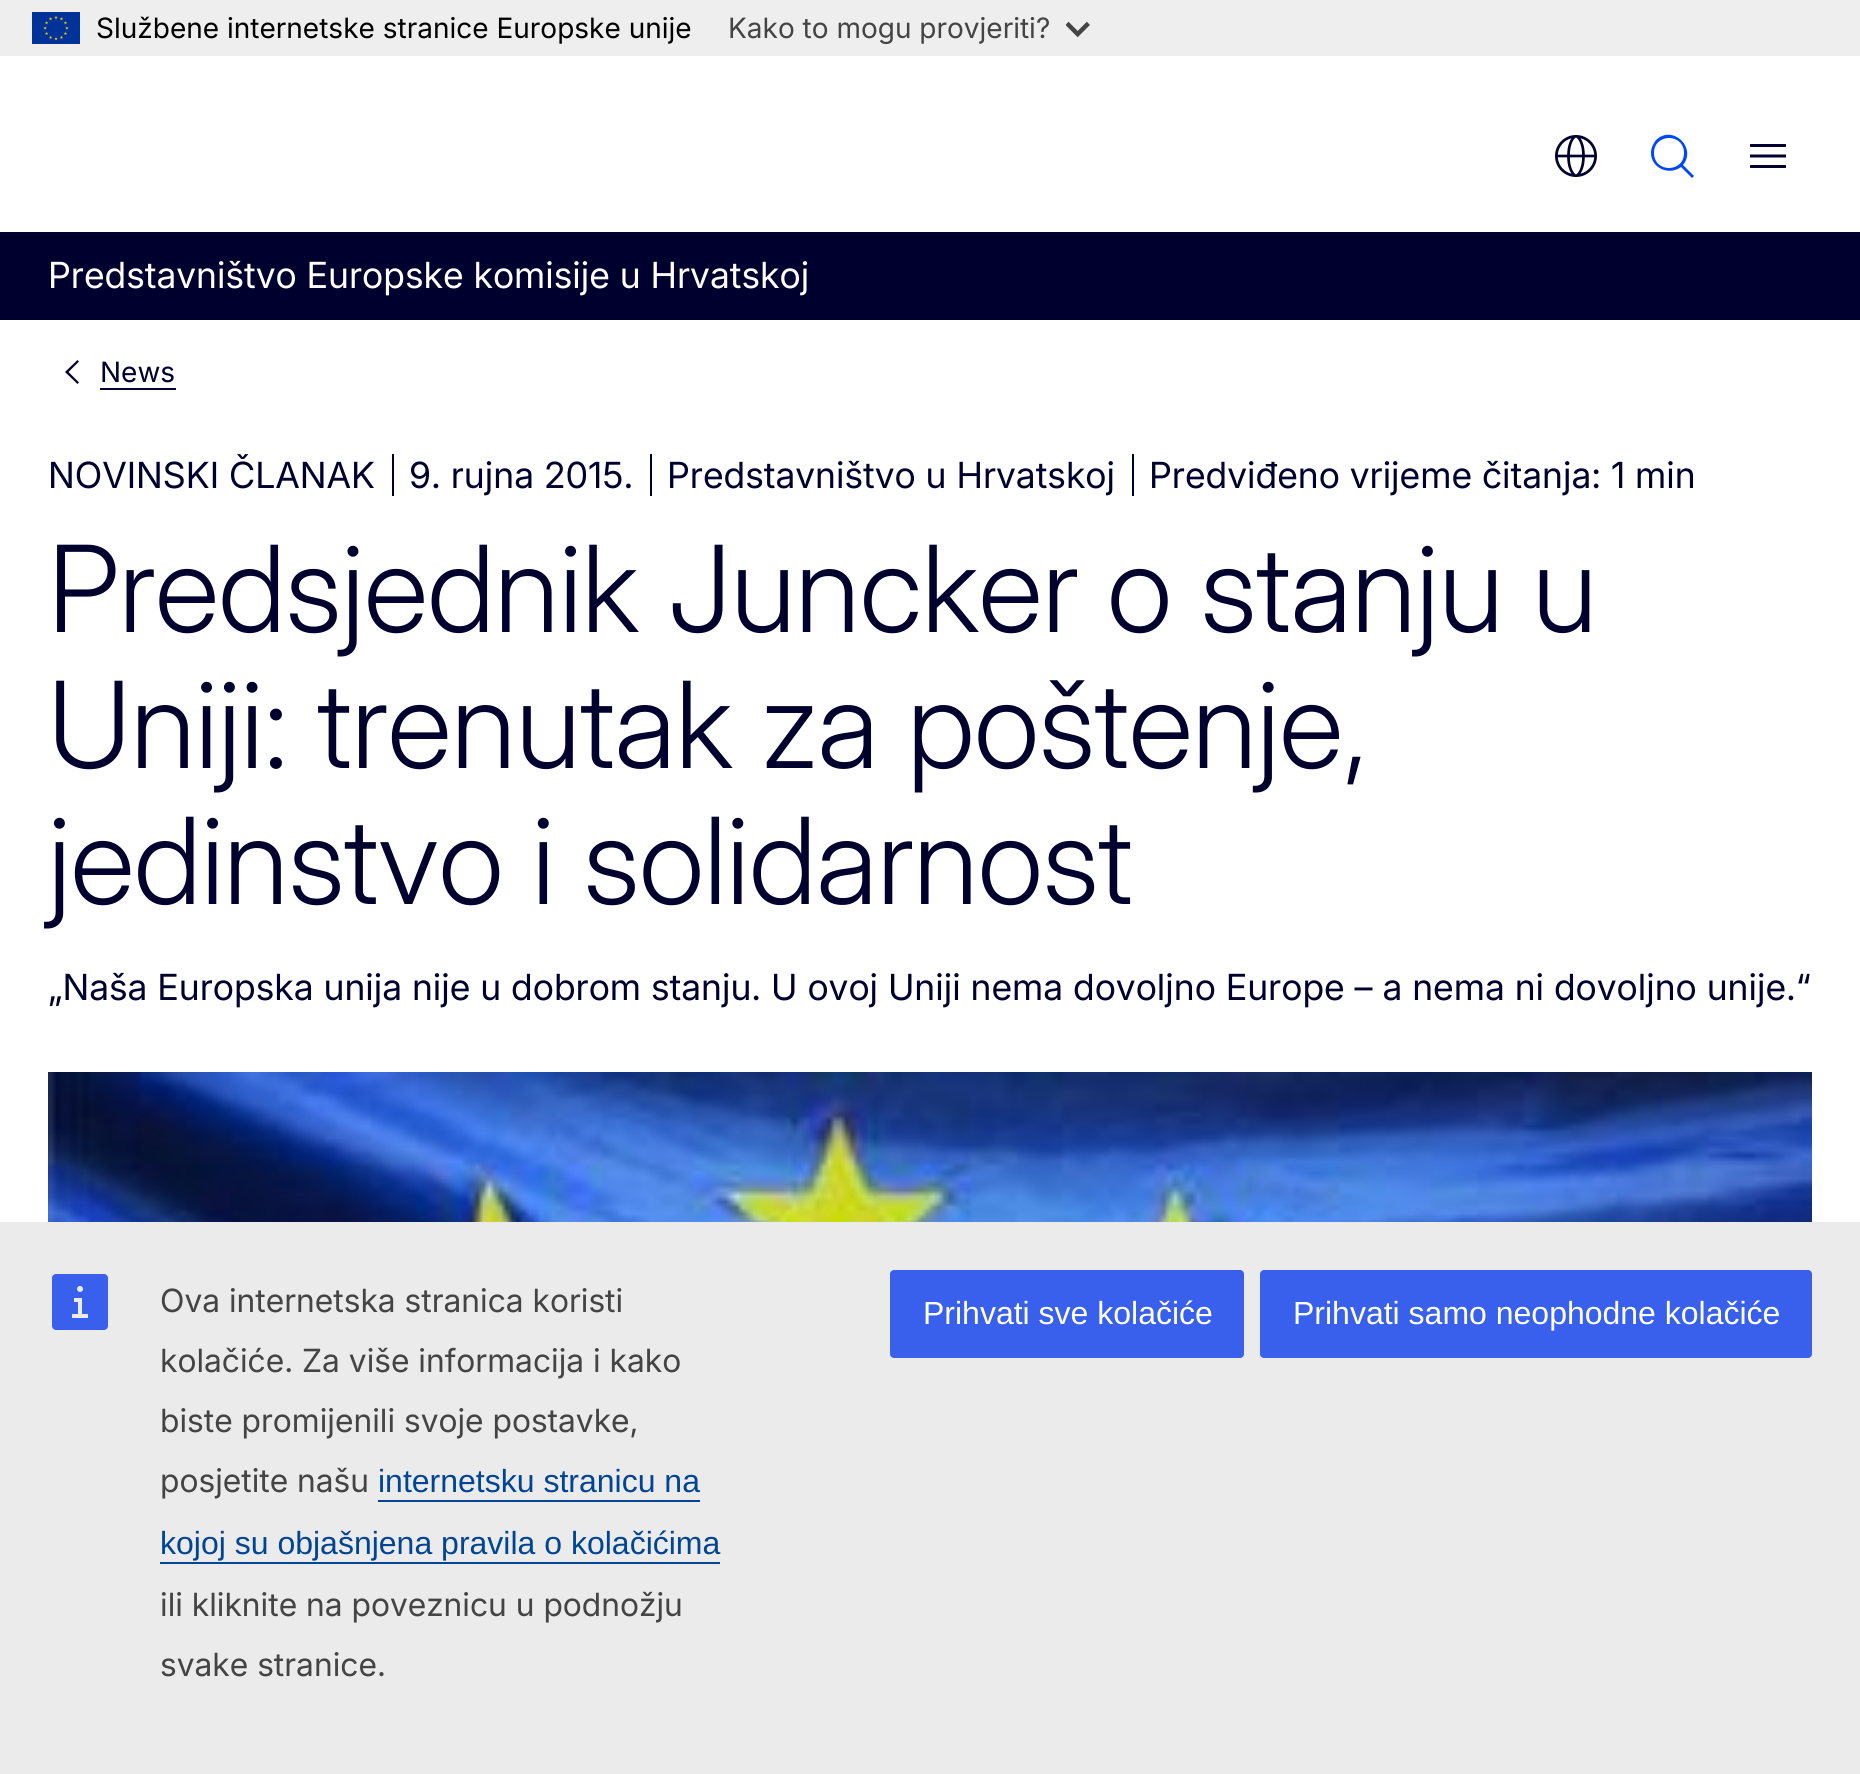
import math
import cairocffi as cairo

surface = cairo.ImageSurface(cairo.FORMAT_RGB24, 1860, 1774)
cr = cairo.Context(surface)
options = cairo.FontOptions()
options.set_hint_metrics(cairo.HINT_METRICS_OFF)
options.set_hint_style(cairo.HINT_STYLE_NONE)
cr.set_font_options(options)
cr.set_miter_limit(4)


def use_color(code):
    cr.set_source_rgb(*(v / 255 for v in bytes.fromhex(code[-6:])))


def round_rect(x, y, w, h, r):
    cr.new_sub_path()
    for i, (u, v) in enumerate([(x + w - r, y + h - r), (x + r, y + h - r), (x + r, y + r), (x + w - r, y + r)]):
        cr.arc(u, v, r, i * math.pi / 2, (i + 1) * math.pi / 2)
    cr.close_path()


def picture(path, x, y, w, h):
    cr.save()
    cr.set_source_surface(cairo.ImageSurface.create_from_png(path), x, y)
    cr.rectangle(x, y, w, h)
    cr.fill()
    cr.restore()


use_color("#ffffff")
cr.paint()
use_color("#eeeeee")
cr.rectangle(0, 0, 1860, 56)
cr.fill()
picture("img1.png", 32, 12, 48, 32)
cr.select_font_face("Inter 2")
cr.set_font_size(28)
use_color("#000000")
cr.move_to(96, 38)
cr.show_text("Službene internetske stranice Europske unije")
use_color("#444444")
cr.move_to(728, 38)
cr.show_text("Kako to mogu provjeriti?")
picture("img2.png", 1066, 21, 24, 17)
picture("img3.png", 1555, 135, 42, 42)
use_color("#0046ff")
cr.set_fill_rule(cairo.FILL_RULE_EVEN_ODD)
cr.new_path()
cr.move_to(1651, 153)
cr.curve_to(1651, 148, 1653, 144, 1656, 140)
cr.curve_to(1673, 124, 1697, 148, 1683, 165)
cr.line_to(1694, 176)
cr.line_to(1692, 178)
cr.line_to(1681, 167)
cr.curve_to(1669, 176, 1651, 168, 1651, 153)
cr.move_to(1684, 153)
cr.curve_to(1684, 133, 1654, 133, 1654, 153)
cr.curve_to(1654, 173, 1684, 173, 1684, 153)
cr.fill()
use_color("#00002e")
cr.new_path()
cr.move_to(1786, 144)
cr.line_to(1750, 144)
cr.line_to(1750, 147)
cr.line_to(1786, 147)
cr.close_path()
cr.move_to(1786, 165)
cr.line_to(1750, 165)
cr.line_to(1750, 168)
cr.line_to(1786, 168)
cr.close_path()
cr.move_to(1750, 154.5)
cr.line_to(1786, 154.5)
cr.line_to(1786, 157.5)
cr.line_to(1750, 157.5)
cr.close_path()
cr.fill()
cr.rectangle(0, 232, 1860, 88)
cr.fill()
cr.select_font_face("Inter")
cr.set_font_size(36)
use_color("#ffffff")
cr.move_to(48, 288)
cr.show_text("Predstavništvo Europske komisije u Hrvatskoj")
use_color("#00002e")
cr.set_fill_rule(cairo.FILL_RULE_WINDING)
cr.new_path()
cr.move_to(77.5, 360)
cr.line_to(79, 361.5)
cr.line_to(68.5, 372)
cr.line_to(79, 382.5)
cr.line_to(77.5, 384)
cr.line_to(65, 372)
cr.close_path()
cr.fill()
cr.select_font_face("Inter 2")
cr.set_font_size(28)
cr.move_to(100, 382)
cr.show_text("News")
cr.rectangle(100, 388, 76, 2)
cr.fill()
cr.select_font_face("Inter")
cr.set_font_size(36)
cr.move_to(48, 488)
cr.show_text("NOVINSKI ČLANAK")
cr.rectangle(392, 454, 2, 42)
cr.fill()
cr.move_to(409, 488)
cr.show_text("9. rujna 2015.")
cr.rectangle(650, 454, 2, 42)
cr.fill()
cr.move_to(667, 488)
cr.show_text("Predstavništvo u Hrvatskoj")
cr.rectangle(1132, 454, 2, 42)
cr.fill()
cr.move_to(1149, 488)
cr.show_text("Predviđeno vrijeme čitanja: 1 min")
cr.select_font_face("Inter Light")
cr.set_font_size(120)
cr.move_to(48, 632)
cr.show_text("Predsjednik Juncker o stanju u")
cr.move_to(48, 768)
cr.show_text("Uniji: trenutak za poštenje,")
cr.move_to(48, 904)
cr.show_text("jedinstvo i solidarnost")
cr.select_font_face("Inter")
cr.set_font_size(36)
cr.move_to(48, 1000)
cr.show_text("„Naša Europska unija nije u dobrom stanju. U ovoj Uniji nema dovoljno Europe – a nema ni dovoljno unije.“")
picture("img4.png", 48, 1072, 1764, 150)
use_color("#ebebeb")
cr.rectangle(0, 1222, 1860, 552)
cr.fill()
picture("img5.png", 52, 1274, 56, 56)
cr.select_font_face("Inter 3")
cr.set_font_size(32)
use_color("#444444")
cr.move_to(160, 1312)
cr.show_text("Ova internetska stranica koristi")
cr.move_to(160, 1372)
cr.show_text("kolačiće. Za više informacija i kako")
cr.move_to(160, 1432)
cr.show_text("biste promijenili svoje postavke,")
cr.move_to(160, 1492)
cr.show_text("posjetite našu")
cr.select_font_face("Liberation Sans")
use_color("#004494")
cr.move_to(378, 1492)
cr.show_text("internetsku stranicu na")
cr.rectangle(378, 1500, 322, 2)
cr.fill()
cr.move_to(160, 1554)
cr.show_text("kojoj su objašnjena pravila o kolačićima")
cr.rectangle(160, 1562, 560, 2)
cr.fill()
cr.select_font_face("Inter 3")
use_color("#444444")
cr.move_to(160, 1616)
cr.show_text("ili kliknite na poveznicu u podnožju")
cr.move_to(160, 1676)
cr.show_text("svake stranice.")
use_color("#3860ed")
round_rect(890, 1270, 354, 88, 4)
cr.fill()
cr.select_font_face("Liberation Sans")
use_color("#ffffff")
cr.move_to(923, 1324)
cr.show_text("Prihvati sve kolačiće")
use_color("#3860ed")
round_rect(1260, 1270, 552, 88, 4)
cr.fill()
use_color("#ffffff")
cr.move_to(1293, 1324)
cr.show_text("Prihvati samo neophodne kolačiće")
surface.write_to_png("result.png")
